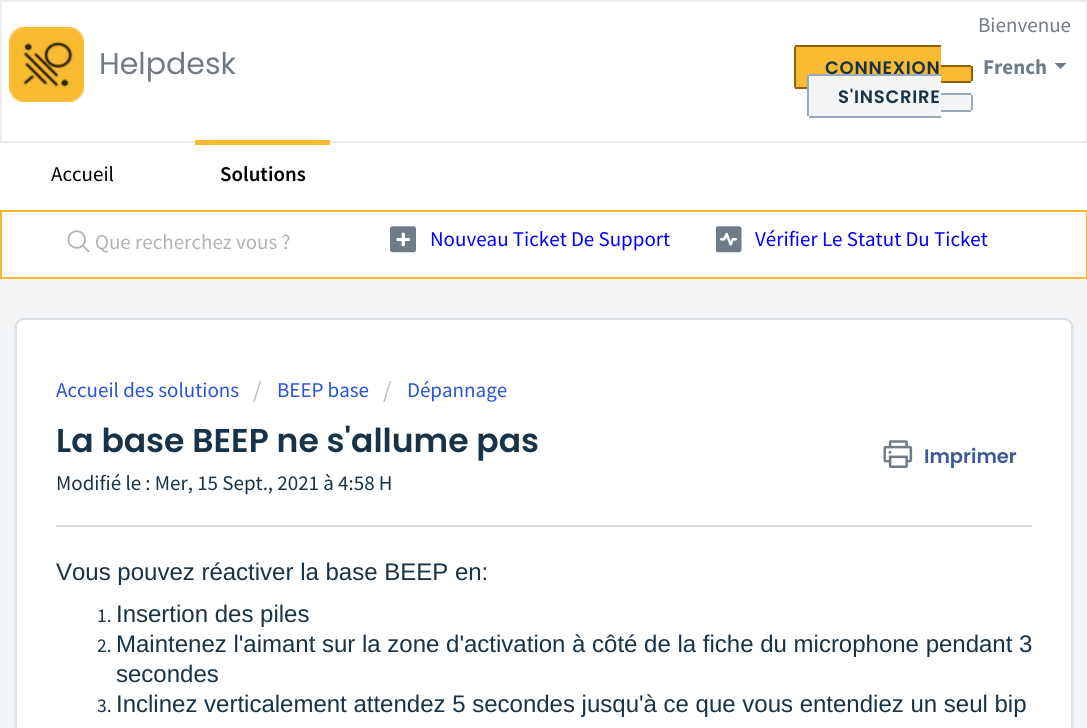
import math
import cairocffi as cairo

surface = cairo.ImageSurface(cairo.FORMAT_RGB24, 1087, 728)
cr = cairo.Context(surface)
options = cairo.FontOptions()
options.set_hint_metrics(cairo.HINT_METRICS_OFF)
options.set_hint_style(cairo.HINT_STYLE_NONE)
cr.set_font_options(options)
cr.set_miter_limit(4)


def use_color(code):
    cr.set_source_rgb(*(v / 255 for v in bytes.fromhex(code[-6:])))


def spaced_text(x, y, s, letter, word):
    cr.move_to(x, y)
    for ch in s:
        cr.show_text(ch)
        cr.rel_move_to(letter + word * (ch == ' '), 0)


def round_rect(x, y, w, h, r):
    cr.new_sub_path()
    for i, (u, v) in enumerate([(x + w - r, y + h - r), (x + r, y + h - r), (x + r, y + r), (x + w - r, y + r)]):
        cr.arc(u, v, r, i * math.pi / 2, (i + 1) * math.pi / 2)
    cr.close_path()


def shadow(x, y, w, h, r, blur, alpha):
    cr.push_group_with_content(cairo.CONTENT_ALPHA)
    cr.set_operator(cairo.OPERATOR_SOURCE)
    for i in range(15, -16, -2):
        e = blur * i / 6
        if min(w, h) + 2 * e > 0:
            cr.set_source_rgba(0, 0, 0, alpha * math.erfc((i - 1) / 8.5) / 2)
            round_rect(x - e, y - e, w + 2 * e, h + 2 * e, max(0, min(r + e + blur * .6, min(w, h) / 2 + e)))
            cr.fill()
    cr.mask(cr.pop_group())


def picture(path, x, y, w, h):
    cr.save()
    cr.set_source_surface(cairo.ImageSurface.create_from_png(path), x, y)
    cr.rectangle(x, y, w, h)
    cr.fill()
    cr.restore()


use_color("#f3f5f7")
cr.paint()
use_color("#ffffff")
cr.rectangle(1, 1, 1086, 141)
cr.fill_preserve()
use_color("#ebeef0")
cr.stroke()
picture("img1.png", 9, 27, 75, 75)
cr.select_font_face("Poppins")
cr.set_font_size(30)
use_color("#6f7c87")
cr.move_to(99, 74)
cr.show_text("Helpdesk")
cr.select_font_face("Source Sans Pro")
cr.set_font_size(21)
cr.move_to(978, 32)
cr.show_text("Bienvenue")
use_color("#f8ba32")
cr.new_path()
cr.move_to(797, 45)
cr.line_to(941, 45)
cr.line_to(941, 89)
cr.line_to(797, 89)
cr.curve_to(795.5, 89, 794, 87.5, 794, 86)
cr.line_to(794, 48)
cr.curve_to(794, 46.5, 795.5, 45, 797, 45)
cr.close_path()
cr.fill()
cr.select_font_face("Poppins SemiBold")
cr.set_font_size(18)
use_color("#183247")
spaced_text(825, 74, "CONNEXION", 0.75, 0)
use_color("#8c6205")
cr.rectangle(795, 45, 146, 2)
cr.fill()
cr.rectangle(795, 87, 12, 2)
cr.fill()
cr.rectangle(794, 47, 2, 40)
cr.fill()
use_color("#f8ba32")
cr.new_path()
cr.move_to(941, 65)
cr.line_to(969, 65)
cr.curve_to(970.5, 65, 972, 66.5, 972, 68)
cr.line_to(972, 80)
cr.curve_to(972, 81.5, 970.5, 83, 969, 83)
cr.line_to(941, 83)
cr.close_path()
cr.fill()
use_color("#8c6205")
cr.rectangle(941, 65, 30, 2)
cr.fill()
cr.rectangle(971, 66, 2, 15)
cr.fill()
cr.rectangle(941, 81, 30, 2)
cr.fill()
cr.select_font_face("Source Sans Pro", cairo.FONT_SLANT_NORMAL, cairo.FONT_WEIGHT_BOLD)
cr.set_font_size(21)
use_color("#6f7c87")
cr.move_to(983, 74)
cr.show_text("French")
cr.new_path()
cr.move_to(1054.5, 63)
cr.line_to(1066.5, 63)
cr.line_to(1060.5, 69)
cr.close_path()
cr.fill()
use_color("#f3f5f7")
cr.new_path()
cr.move_to(810, 74)
cr.line_to(941, 74)
cr.line_to(941, 117)
cr.line_to(810, 117)
cr.curve_to(808.5, 117, 807, 115.5, 807, 114)
cr.line_to(807, 77)
cr.curve_to(807, 75.5, 808.5, 74, 810, 74)
cr.close_path()
cr.fill()
cr.select_font_face("Poppins SemiBold")
cr.set_font_size(18)
use_color("#183247")
spaced_text(838, 103, "S'INSCRIRE", 0.75, 0)
use_color("#97a9ba")
cr.rectangle(809, 74, 132, 2)
cr.fill()
cr.rectangle(809, 116, 132, 2)
cr.fill()
cr.rectangle(807, 75, 2, 41)
cr.fill()
use_color("#f3f5f7")
cr.new_path()
cr.move_to(941, 93)
cr.line_to(969, 93)
cr.curve_to(970.5, 93, 972, 94.5, 972, 96)
cr.line_to(972, 108)
cr.curve_to(972, 109.5, 970.5, 111, 969, 111)
cr.line_to(941, 111)
cr.close_path()
cr.fill()
use_color("#97a9ba")
cr.rectangle(941, 93, 30, 2)
cr.fill()
cr.rectangle(971, 95, 2, 15)
cr.fill()
cr.rectangle(941, 110, 30, 2)
cr.fill()
use_color("#ffffff")
cr.rectangle(0, 143, 1087, 67)
cr.fill()
cr.select_font_face("Source Sans Pro")
cr.set_font_size(21)
use_color("#000000")
cr.move_to(51, 181)
cr.show_text("Accueil")
use_color("#f8ba32")
cr.rectangle(195, 140, 135, 5)
cr.fill()
cr.select_font_face("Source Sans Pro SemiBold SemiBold")
use_color("#000000")
cr.move_to(220, 181)
cr.show_text("Solutions")
use_color("#ffffff")
cr.rectangle(1, 211, 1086, 67)
cr.fill_preserve()
use_color("#f8ba32")
cr.stroke()
picture("img2.png", 67, 230, 23, 23)
cr.select_font_face("Source Sans Pro")
use_color("#b2b2b2")
cr.move_to(95, 249)
cr.show_text("Que recherchez vous ?")
picture("img3.png", 390, 226, 26, 27)
use_color("#0000ff")
cr.move_to(430, 246)
cr.show_text("Nouveau Ticket De Support")
picture("img4.png", 716, 226, 26, 27)
cr.move_to(755, 246)
cr.show_text("Vérifier Le Statut Du Ticket")
use_color("#f8f9fa")
cr.rectangle(15, 318, 1058, 9)
cr.fill()
use_color("#3f3f44")
shadow(15, 320, 1058, 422, 9, 1.5, 0.15)
use_color("#ffffff")
round_rect(16, 319, 1056, 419, 8)
cr.fill_preserve()
use_color("#dadfe3")
cr.stroke()
use_color("#2753d7")
cr.move_to(56, 397)
cr.show_text("Accueil des solutions")
cr.set_font_size(24)
use_color("#bbbbbb")
cr.move_to(253, 398)
cr.show_text("/")
cr.set_font_size(21)
use_color("#2753d7")
cr.move_to(277, 397)
cr.show_text("BEEP base")
cr.set_font_size(24)
use_color("#bbbbbb")
cr.move_to(383, 398)
cr.show_text("/")
cr.set_font_size(21)
use_color("#2753d7")
cr.move_to(407, 397)
cr.show_text("Dépannage")
cr.select_font_face("Poppins SemiBold")
cr.set_font_size(33)
use_color("#183247")
cr.move_to(56, 452)
cr.show_text("La base BEEP ne s'allume pas")
picture("img5.png", 883, 440, 30, 28)
cr.set_font_size(19.5)
use_color("#3b5998")
cr.move_to(924, 463)
cr.show_text("Imprimer")
cr.select_font_face("Source Sans Pro")
cr.set_font_size(21)
use_color("#183247")
cr.move_to(56, 490)
cr.show_text("Modifié le : Mer, 15 Sept., 2021 à 4:58 H")
use_color("#dcdcdc")
cr.rectangle(56, 525, 976, 2)
cr.fill()
cr.select_font_face("Liberation Sans")
cr.set_font_size(24)
use_color("#183247")
cr.move_to(56, 580)
cr.show_text("Vous pouvez réactiver la base BEEP en:")
cr.select_font_face("Source Sans Pro")
cr.set_font_size(19.5)
cr.move_to(97, 622)
cr.show_text("1.")
cr.select_font_face("Liberation Sans")
cr.set_font_size(24)
cr.move_to(116, 622)
cr.show_text("Insertion des piles")
cr.select_font_face("Source Sans Pro")
cr.set_font_size(19.5)
cr.move_to(97, 652)
cr.show_text("2.")
cr.select_font_face("Liberation Sans")
cr.set_font_size(24)
cr.move_to(116, 652)
cr.show_text("Maintenez l'aimant sur la zone d'activation à côté de la fiche du microphone pendant 3")
cr.move_to(116, 682)
cr.show_text("secondes")
cr.select_font_face("Source Sans Pro")
cr.set_font_size(19.5)
cr.move_to(97, 712)
cr.show_text("3.")
cr.select_font_face("Liberation Sans")
cr.set_font_size(24)
cr.move_to(116, 712)
cr.show_text("Inclinez verticalement attendez 5 secondes jusqu'à ce que vous entendiez un seul bip")
surface.write_to_png("result.png")
